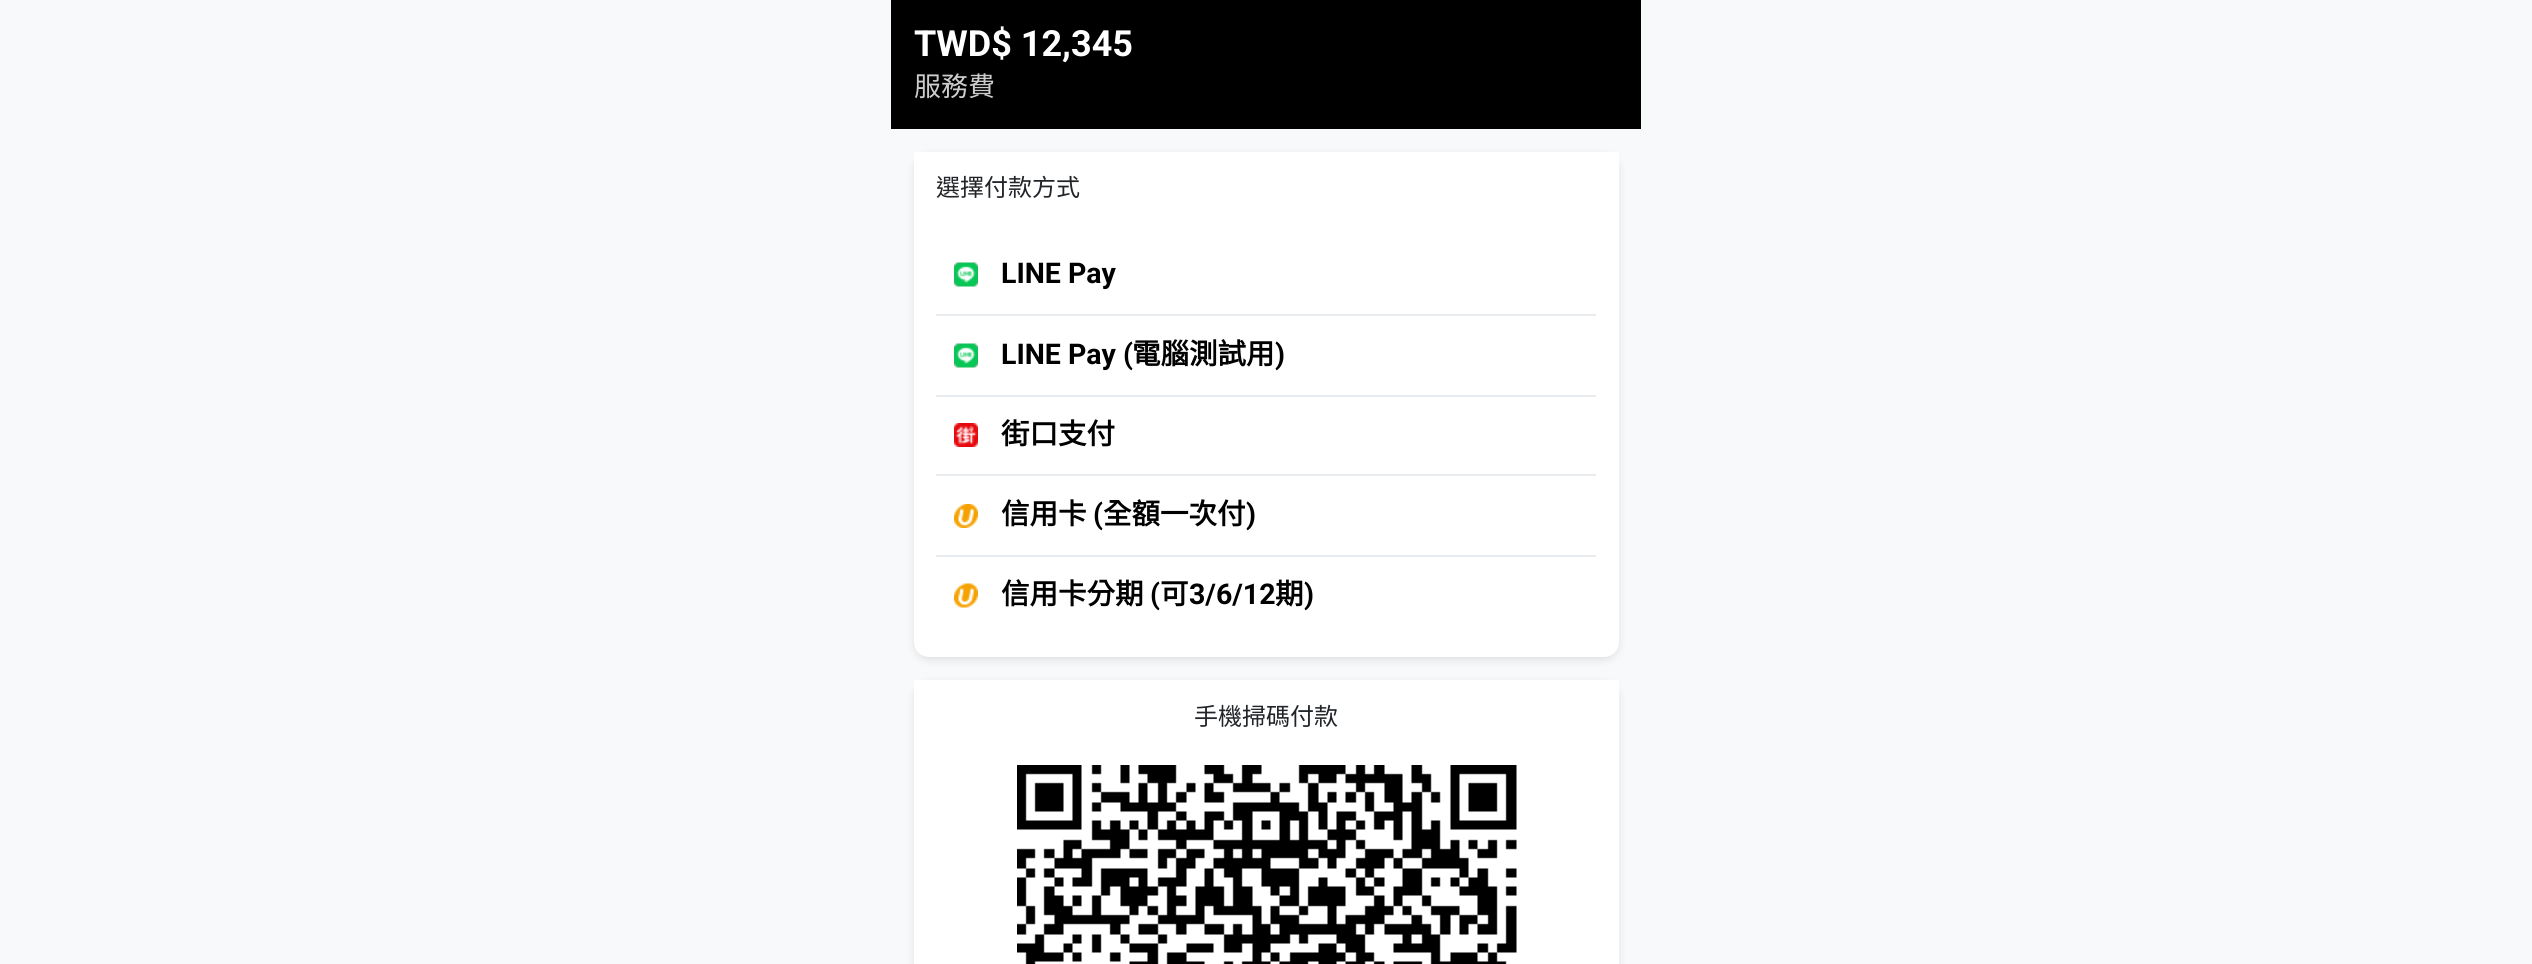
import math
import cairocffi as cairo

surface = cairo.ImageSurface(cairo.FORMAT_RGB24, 2532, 964)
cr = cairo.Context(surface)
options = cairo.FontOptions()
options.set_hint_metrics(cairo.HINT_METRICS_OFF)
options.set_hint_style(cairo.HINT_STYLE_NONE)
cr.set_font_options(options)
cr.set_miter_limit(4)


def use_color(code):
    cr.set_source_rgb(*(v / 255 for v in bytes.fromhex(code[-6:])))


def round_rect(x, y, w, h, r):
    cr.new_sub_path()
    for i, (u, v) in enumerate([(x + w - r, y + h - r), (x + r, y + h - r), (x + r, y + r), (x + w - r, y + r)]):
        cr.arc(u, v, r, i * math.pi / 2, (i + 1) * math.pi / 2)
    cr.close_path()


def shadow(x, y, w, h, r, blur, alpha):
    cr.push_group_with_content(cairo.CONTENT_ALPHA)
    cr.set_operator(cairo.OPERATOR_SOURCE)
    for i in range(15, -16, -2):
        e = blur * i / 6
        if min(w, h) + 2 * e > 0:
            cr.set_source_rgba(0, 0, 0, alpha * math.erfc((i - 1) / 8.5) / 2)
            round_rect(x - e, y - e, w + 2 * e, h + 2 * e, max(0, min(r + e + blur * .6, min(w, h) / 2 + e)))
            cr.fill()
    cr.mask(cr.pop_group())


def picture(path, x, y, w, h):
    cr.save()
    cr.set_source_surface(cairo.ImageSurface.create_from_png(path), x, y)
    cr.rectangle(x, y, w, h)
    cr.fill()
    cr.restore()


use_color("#f8f9fa")
cr.paint()
use_color("#000000")
cr.rectangle(891, 0, 750, 129)
cr.fill()
cr.select_font_face("Roboto", cairo.FONT_SLANT_NORMAL, cairo.FONT_WEIGHT_BOLD)
cr.set_font_size(36)
use_color("#ffffff")
cr.move_to(914, 56)
cr.show_text("TWD$ 12,345")
cr.select_font_face("Noto Sans CJK TC")
cr.set_font_size(27)
use_color("#cccccc")
cr.move_to(914, 96)
cr.show_text("服務費")
use_color("#000000")
shadow(914, 155, 705, 505, 15, 4, 0.1)
use_color("#ffffff")
cr.new_path()
cr.move_to(914, 152)
cr.line_to(1619, 152)
cr.line_to(1619, 642)
cr.curve_to(1619, 650.5, 1612.5, 657, 1604, 657)
cr.line_to(929, 657)
cr.curve_to(920.5, 657, 914, 650.5, 914, 642)
cr.close_path()
cr.fill()
cr.set_font_size(24)
use_color("#212529")
cr.move_to(936, 196)
cr.show_text("選擇付款方式")
use_color("#e9ecef")
cr.rectangle(936, 314, 660, 2)
cr.fill()
picture("img1.png", 954, 262, 24, 25)
cr.select_font_face("Roboto", cairo.FONT_SLANT_NORMAL, cairo.FONT_WEIGHT_BOLD)
cr.set_font_size(28.5)
use_color("#000000")
cr.move_to(1001, 283)
cr.show_text("LINE Pay")
use_color("#e9ecef")
cr.rectangle(936, 395, 660, 2)
cr.fill()
picture("img1.png", 954, 343, 24, 25)
use_color("#000000")
cr.move_to(1001, 364)
cr.show_text("LINE Pay (")
cr.select_font_face("Noto Sans CJK TC", cairo.FONT_SLANT_NORMAL, cairo.FONT_WEIGHT_BOLD)
cr.move_to(1132, 364)
cr.show_text("電腦測試用")
cr.select_font_face("Roboto", cairo.FONT_SLANT_NORMAL, cairo.FONT_WEIGHT_BOLD)
cr.move_to(1275, 364)
cr.show_text(")")
use_color("#e9ecef")
cr.rectangle(936, 474, 660, 2)
cr.fill()
picture("img2.png", 954, 423, 24, 24)
cr.select_font_face("Noto Sans CJK TC", cairo.FONT_SLANT_NORMAL, cairo.FONT_WEIGHT_BOLD)
use_color("#000000")
cr.move_to(1001, 444)
cr.show_text("街口支付")
use_color("#e9ecef")
cr.rectangle(936, 555, 660, 2)
cr.fill()
picture("img3.png", 954, 504, 24, 24)
use_color("#000000")
cr.move_to(1001, 524)
cr.show_text("信用卡")
cr.select_font_face("Roboto", cairo.FONT_SLANT_NORMAL, cairo.FONT_WEIGHT_BOLD)
cr.move_to(1093, 524)
cr.show_text("(")
cr.select_font_face("Noto Sans CJK TC", cairo.FONT_SLANT_NORMAL, cairo.FONT_WEIGHT_BOLD)
cr.move_to(1103, 524)
cr.show_text("全額一次付")
cr.select_font_face("Roboto", cairo.FONT_SLANT_NORMAL, cairo.FONT_WEIGHT_BOLD)
cr.move_to(1246, 524)
cr.show_text(")")
picture("img4.png", 954, 583, 24, 25)
cr.select_font_face("Noto Sans CJK TC", cairo.FONT_SLANT_NORMAL, cairo.FONT_WEIGHT_BOLD)
cr.move_to(1001, 604)
cr.show_text("信用卡分期")
cr.select_font_face("Roboto", cairo.FONT_SLANT_NORMAL, cairo.FONT_WEIGHT_BOLD)
cr.move_to(1150, 604)
cr.show_text("(")
cr.select_font_face("Noto Sans CJK TC", cairo.FONT_SLANT_NORMAL, cairo.FONT_WEIGHT_BOLD)
cr.move_to(1160, 604)
cr.show_text("可")
cr.select_font_face("Roboto", cairo.FONT_SLANT_NORMAL, cairo.FONT_WEIGHT_BOLD)
cr.move_to(1189, 604)
cr.show_text("3/6/12")
cr.select_font_face("Noto Sans CJK TC", cairo.FONT_SLANT_NORMAL, cairo.FONT_WEIGHT_BOLD)
cr.move_to(1275, 604)
cr.show_text("期")
cr.select_font_face("Roboto", cairo.FONT_SLANT_NORMAL, cairo.FONT_WEIGHT_BOLD)
cr.move_to(1304, 604)
cr.show_text(")")
use_color("#000000")
shadow(914, 683, 705, 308, 15, 4, 0.1)
use_color("#ffffff")
cr.rectangle(914, 680, 705, 284)
cr.fill()
cr.select_font_face("Noto Sans CJK TC")
cr.set_font_size(24)
use_color("#212529")
cr.move_to(1194, 725)
cr.show_text("手機掃碼付款")
picture("img5.png", 1017, 765, 500, 199)
surface.write_to_png("result.png")
